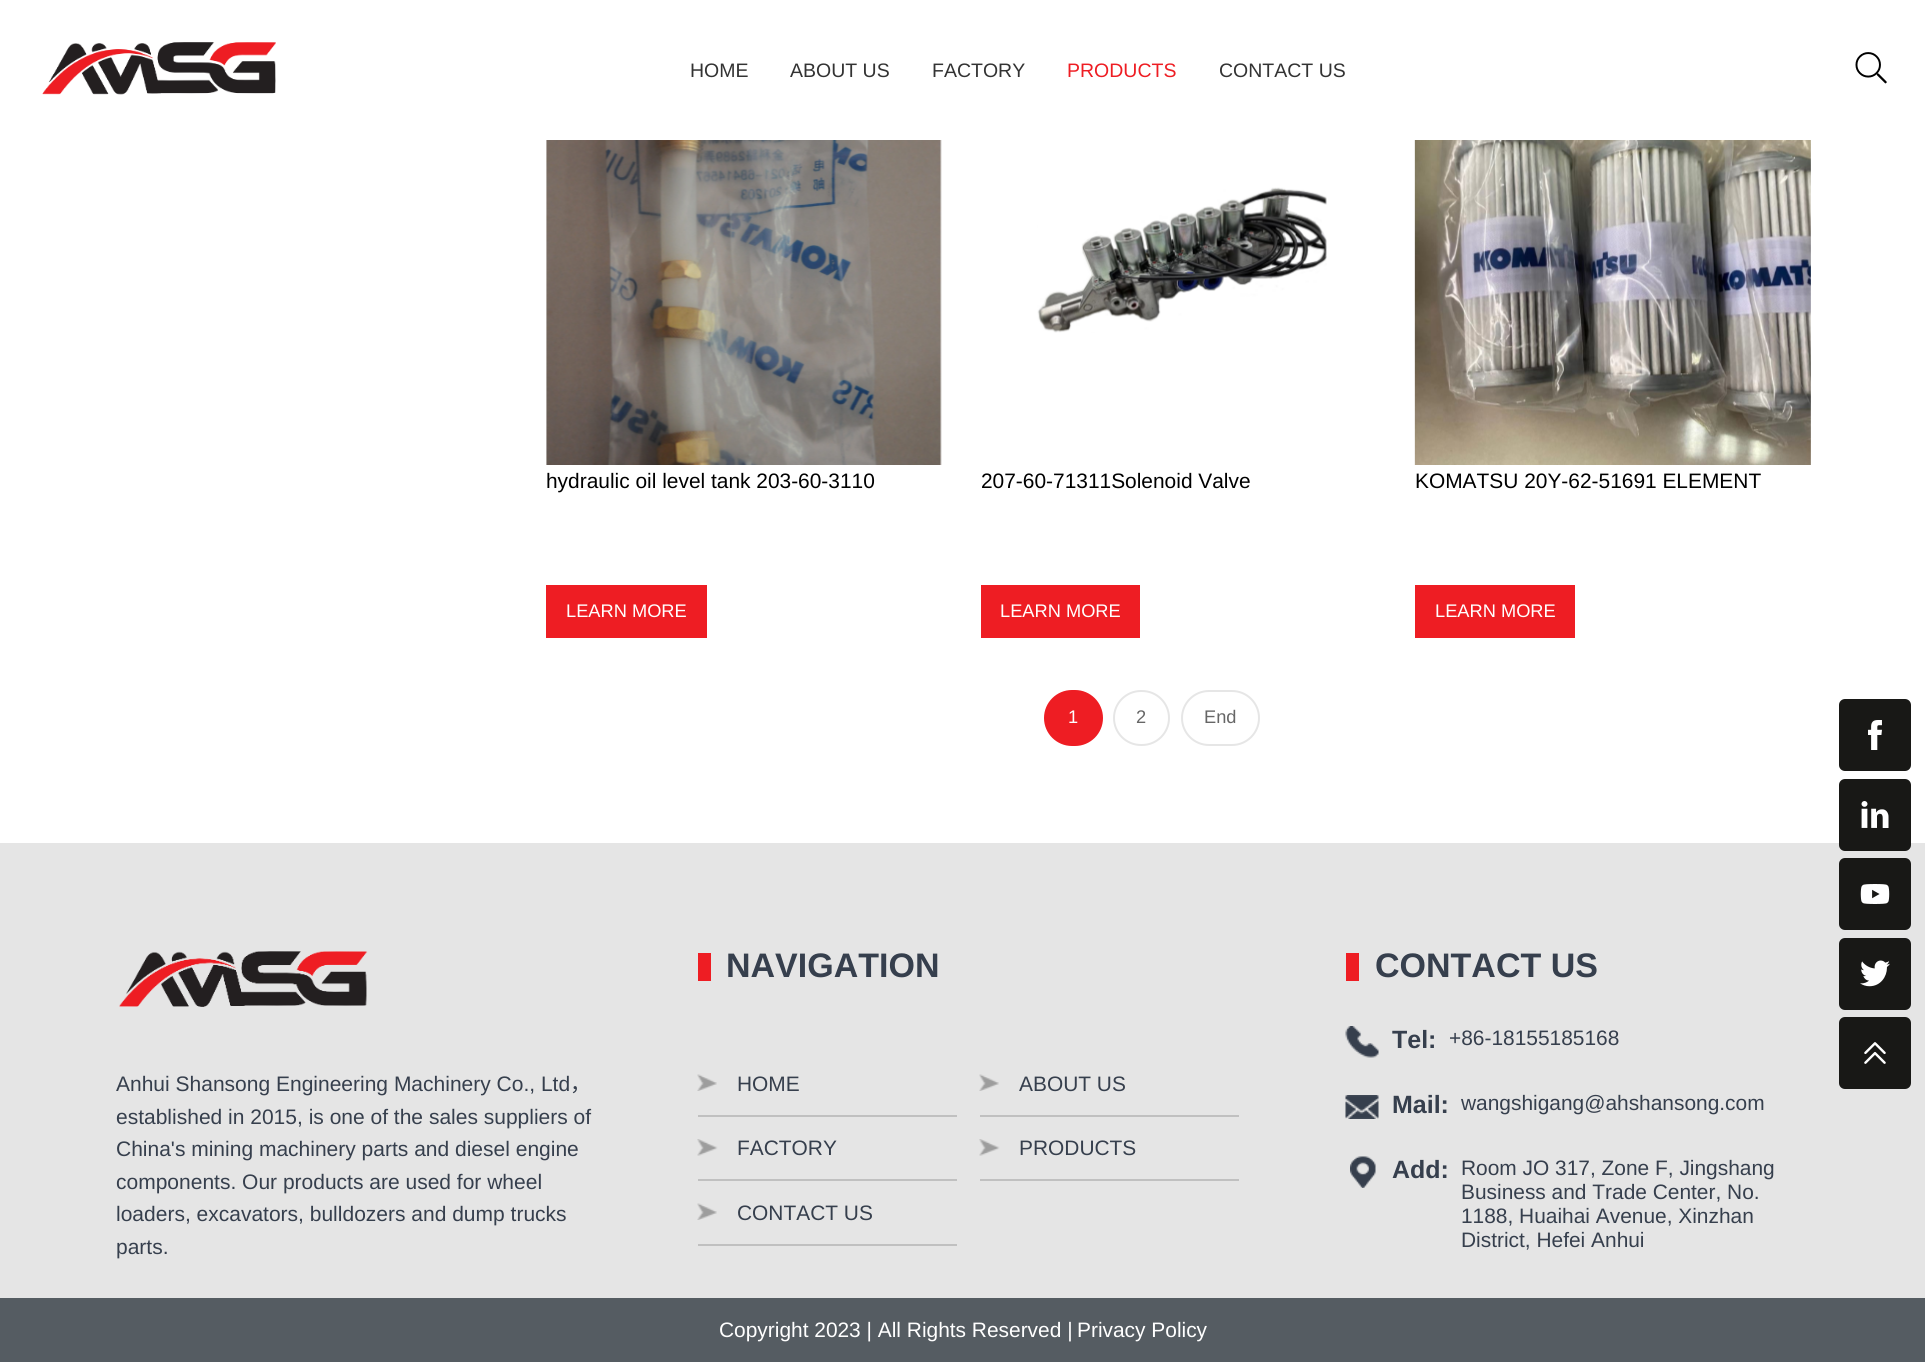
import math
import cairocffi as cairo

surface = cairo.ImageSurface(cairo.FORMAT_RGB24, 1925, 1362)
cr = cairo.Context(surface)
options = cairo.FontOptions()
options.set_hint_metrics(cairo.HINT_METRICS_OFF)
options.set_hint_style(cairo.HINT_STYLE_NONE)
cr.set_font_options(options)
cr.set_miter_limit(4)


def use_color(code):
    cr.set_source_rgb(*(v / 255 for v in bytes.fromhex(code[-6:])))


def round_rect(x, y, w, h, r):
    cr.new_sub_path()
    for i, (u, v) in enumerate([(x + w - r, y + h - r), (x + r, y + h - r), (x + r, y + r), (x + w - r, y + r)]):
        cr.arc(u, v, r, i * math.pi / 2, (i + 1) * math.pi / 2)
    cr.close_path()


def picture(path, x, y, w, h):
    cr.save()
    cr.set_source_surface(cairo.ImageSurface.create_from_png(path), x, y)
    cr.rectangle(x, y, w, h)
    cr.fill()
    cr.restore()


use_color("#ffffff")
cr.paint()
picture("img1.png", 42, 42, 234, 53)
cr.select_font_face("Liberation Sans")
cr.set_font_size(19.5)
use_color("#333333")
cr.move_to(690, 77)
cr.show_text("HOME")
cr.move_to(790, 77)
cr.show_text("ABOUT US")
cr.move_to(932, 77)
cr.show_text("FACTORY")
use_color("#ee1d23")
cr.move_to(1067, 77)
cr.show_text("PRODUCTS")
use_color("#333333")
cr.move_to(1219, 77)
cr.show_text("CONTACT US")
picture("img2.png", 1855, 52, 32, 32)
picture("img3.png", 546, 140, 396, 325)
cr.set_font_size(20.9)
use_color("#000000")
cr.move_to(546, 488)
cr.show_text("hydraulic oil level tank 203-60-3110")
use_color("#ee1d23")
cr.rectangle(546, 585, 161, 53)
cr.fill()
cr.set_font_size(18.25)
use_color("#ffffff")
cr.move_to(566, 617)
cr.show_text("LEARN MORE")
picture("img4.png", 1037, 187, 290, 146)
cr.set_font_size(20.9)
use_color("#000000")
cr.move_to(981, 488)
cr.show_text("207-60-71311Solenoid Valve")
use_color("#ee1d23")
cr.rectangle(981, 585, 159, 53)
cr.fill()
cr.set_font_size(18.25)
use_color("#ffffff")
cr.move_to(1000, 617)
cr.show_text("LEARN MORE")
picture("img5.png", 1414, 140, 397, 325)
cr.set_font_size(20.9)
use_color("#000000")
cr.move_to(1415, 488)
cr.show_text("KOMATSU 20Y-62-51691 ELEMENT")
use_color("#ee1d23")
cr.rectangle(1415, 585, 160, 53)
cr.fill()
cr.set_font_size(18.25)
use_color("#ffffff")
cr.move_to(1435, 617)
cr.show_text("LEARN MORE")
use_color("#ee1d23")
round_rect(1045, 691, 57, 54, 27)
cr.fill_preserve()
cr.stroke()
use_color("#ffffff")
cr.move_to(1068, 723)
cr.show_text("1")
round_rect(1114, 691, 55, 54, 27)
use_color("#e6e6e6")
cr.stroke()
use_color("#666666")
cr.move_to(1136, 723)
cr.show_text("2")
round_rect(1182, 691, 77, 54, 27)
use_color("#e6e6e6")
cr.stroke()
use_color("#666666")
cr.move_to(1204, 723)
cr.show_text("End")
use_color("#e5e5e5")
cr.rectangle(0, 843, 1925, 455)
cr.fill()
picture("img6.png", 119, 951, 249, 56)
cr.set_font_size(21)
use_color("#363f4d")
cr.move_to(116, 1091)
cr.show_text("Anhui Shansong Engineering Machinery Co., Ltd")
cr.select_font_face("Noto Sans CJK SC")
cr.move_to(570, 1091)
cr.show_text("，")
cr.select_font_face("Liberation Sans")
cr.move_to(116, 1124)
cr.show_text("established in 2015, is one of the sales suppliers of")
cr.move_to(116, 1156)
cr.show_text("China's mining machinery parts and diesel engine")
cr.move_to(116, 1189)
cr.show_text("components. Our products are used for wheel")
cr.move_to(116, 1221)
cr.show_text("loaders, excavators, bulldozers and dump trucks")
cr.move_to(116, 1254)
cr.show_text("parts.")
use_color("#ee1d23")
cr.rectangle(698, 953, 13, 28)
cr.fill()
cr.select_font_face("Liberation Sans", cairo.FONT_SLANT_NORMAL, cairo.FONT_WEIGHT_BOLD)
cr.set_font_size(34)
use_color("#363f4d")
cr.move_to(726, 977)
cr.show_text("NAVIGATION")
use_color("#c0c0c0")
cr.rectangle(698, 1115, 259, 2)
cr.fill()
picture("img7.png", 697, 1074, 20, 17)
cr.select_font_face("Liberation Sans")
cr.set_font_size(20.9)
use_color("#363f4d")
cr.move_to(737, 1091)
cr.show_text("HOME")
use_color("#c0c0c0")
cr.rectangle(980, 1115, 259, 2)
cr.fill()
picture("img8.png", 979, 1074, 20, 17)
use_color("#363f4d")
cr.move_to(1019, 1091)
cr.show_text("ABOUT US")
use_color("#c0c0c0")
cr.rectangle(698, 1179, 259, 2)
cr.fill()
picture("img9.png", 697, 1139, 21, 17)
use_color("#363f4d")
cr.move_to(737, 1155)
cr.show_text("FACTORY")
use_color("#c0c0c0")
cr.rectangle(980, 1179, 259, 2)
cr.fill()
picture("img10.png", 979, 1139, 21, 17)
use_color("#363f4d")
cr.move_to(1019, 1155)
cr.show_text("PRODUCTS")
use_color("#c0c0c0")
cr.rectangle(698, 1244, 259, 2)
cr.fill()
picture("img7.png", 697, 1203, 20, 17)
use_color("#363f4d")
cr.move_to(737, 1220)
cr.show_text("CONTACT US")
use_color("#ee1d23")
cr.rectangle(1346, 953, 13, 28)
cr.fill()
cr.select_font_face("Liberation Sans", cairo.FONT_SLANT_NORMAL, cairo.FONT_WEIGHT_BOLD)
cr.set_font_size(34)
use_color("#363f4d")
cr.move_to(1375, 977)
cr.show_text("CONTACT US")
picture("img11.png", 1345, 1026, 34, 32)
cr.set_font_size(25)
cr.move_to(1392, 1048)
cr.show_text("Tel:")
cr.select_font_face("Liberation Sans")
cr.set_font_size(20.9)
cr.move_to(1449, 1045)
cr.show_text("+86-18155185168")
picture("img12.png", 1345, 1095, 34, 24)
cr.select_font_face("Liberation Sans", cairo.FONT_SLANT_NORMAL, cairo.FONT_WEIGHT_BOLD)
cr.set_font_size(25)
cr.move_to(1392, 1113)
cr.show_text("Mail:")
cr.select_font_face("Liberation Sans")
cr.set_font_size(20.9)
cr.move_to(1461, 1110)
cr.show_text("wangshigang@ahshansong.com")
picture("img13.png", 1350, 1156, 26, 32)
cr.select_font_face("Liberation Sans", cairo.FONT_SLANT_NORMAL, cairo.FONT_WEIGHT_BOLD)
cr.set_font_size(25)
cr.move_to(1392, 1178)
cr.show_text("Add:")
cr.select_font_face("Liberation Sans")
cr.set_font_size(20.9)
cr.move_to(1461, 1175)
cr.show_text("Room JO 317, Zone F, Jingshang")
cr.move_to(1461, 1199)
cr.show_text("Business and Trade Center, No.")
cr.move_to(1461, 1223)
cr.show_text("1188, Huaihai Avenue, Xinzhan")
cr.move_to(1461, 1247)
cr.show_text("District, Hefei Anhui")
use_color("#181816")
round_rect(1839, 699, 72, 72, 6)
cr.fill()
picture("img14.png", 1868, 720, 14, 30)
round_rect(1839, 779, 72, 72, 6)
cr.fill()
picture("img15.png", 1861, 801, 28, 27)
round_rect(1839, 858, 72, 72, 6)
cr.fill()
picture("img16.png", 1860, 884, 30, 20)
round_rect(1839, 938, 72, 72, 6)
cr.fill()
picture("img17.png", 1860, 960, 30, 27)
round_rect(1839, 1017, 72, 72, 6)
cr.fill()
picture("img18.png", 1864, 1042, 22, 22)
use_color("#555c62")
cr.rectangle(0, 1298, 1925, 64)
cr.fill()
use_color("#ffffff")
cr.move_to(719, 1337)
cr.show_text("Copyright 2023 | All Rights Reserved |")
cr.move_to(1077, 1337)
cr.show_text("Privacy Policy")
surface.write_to_png("result.png")
